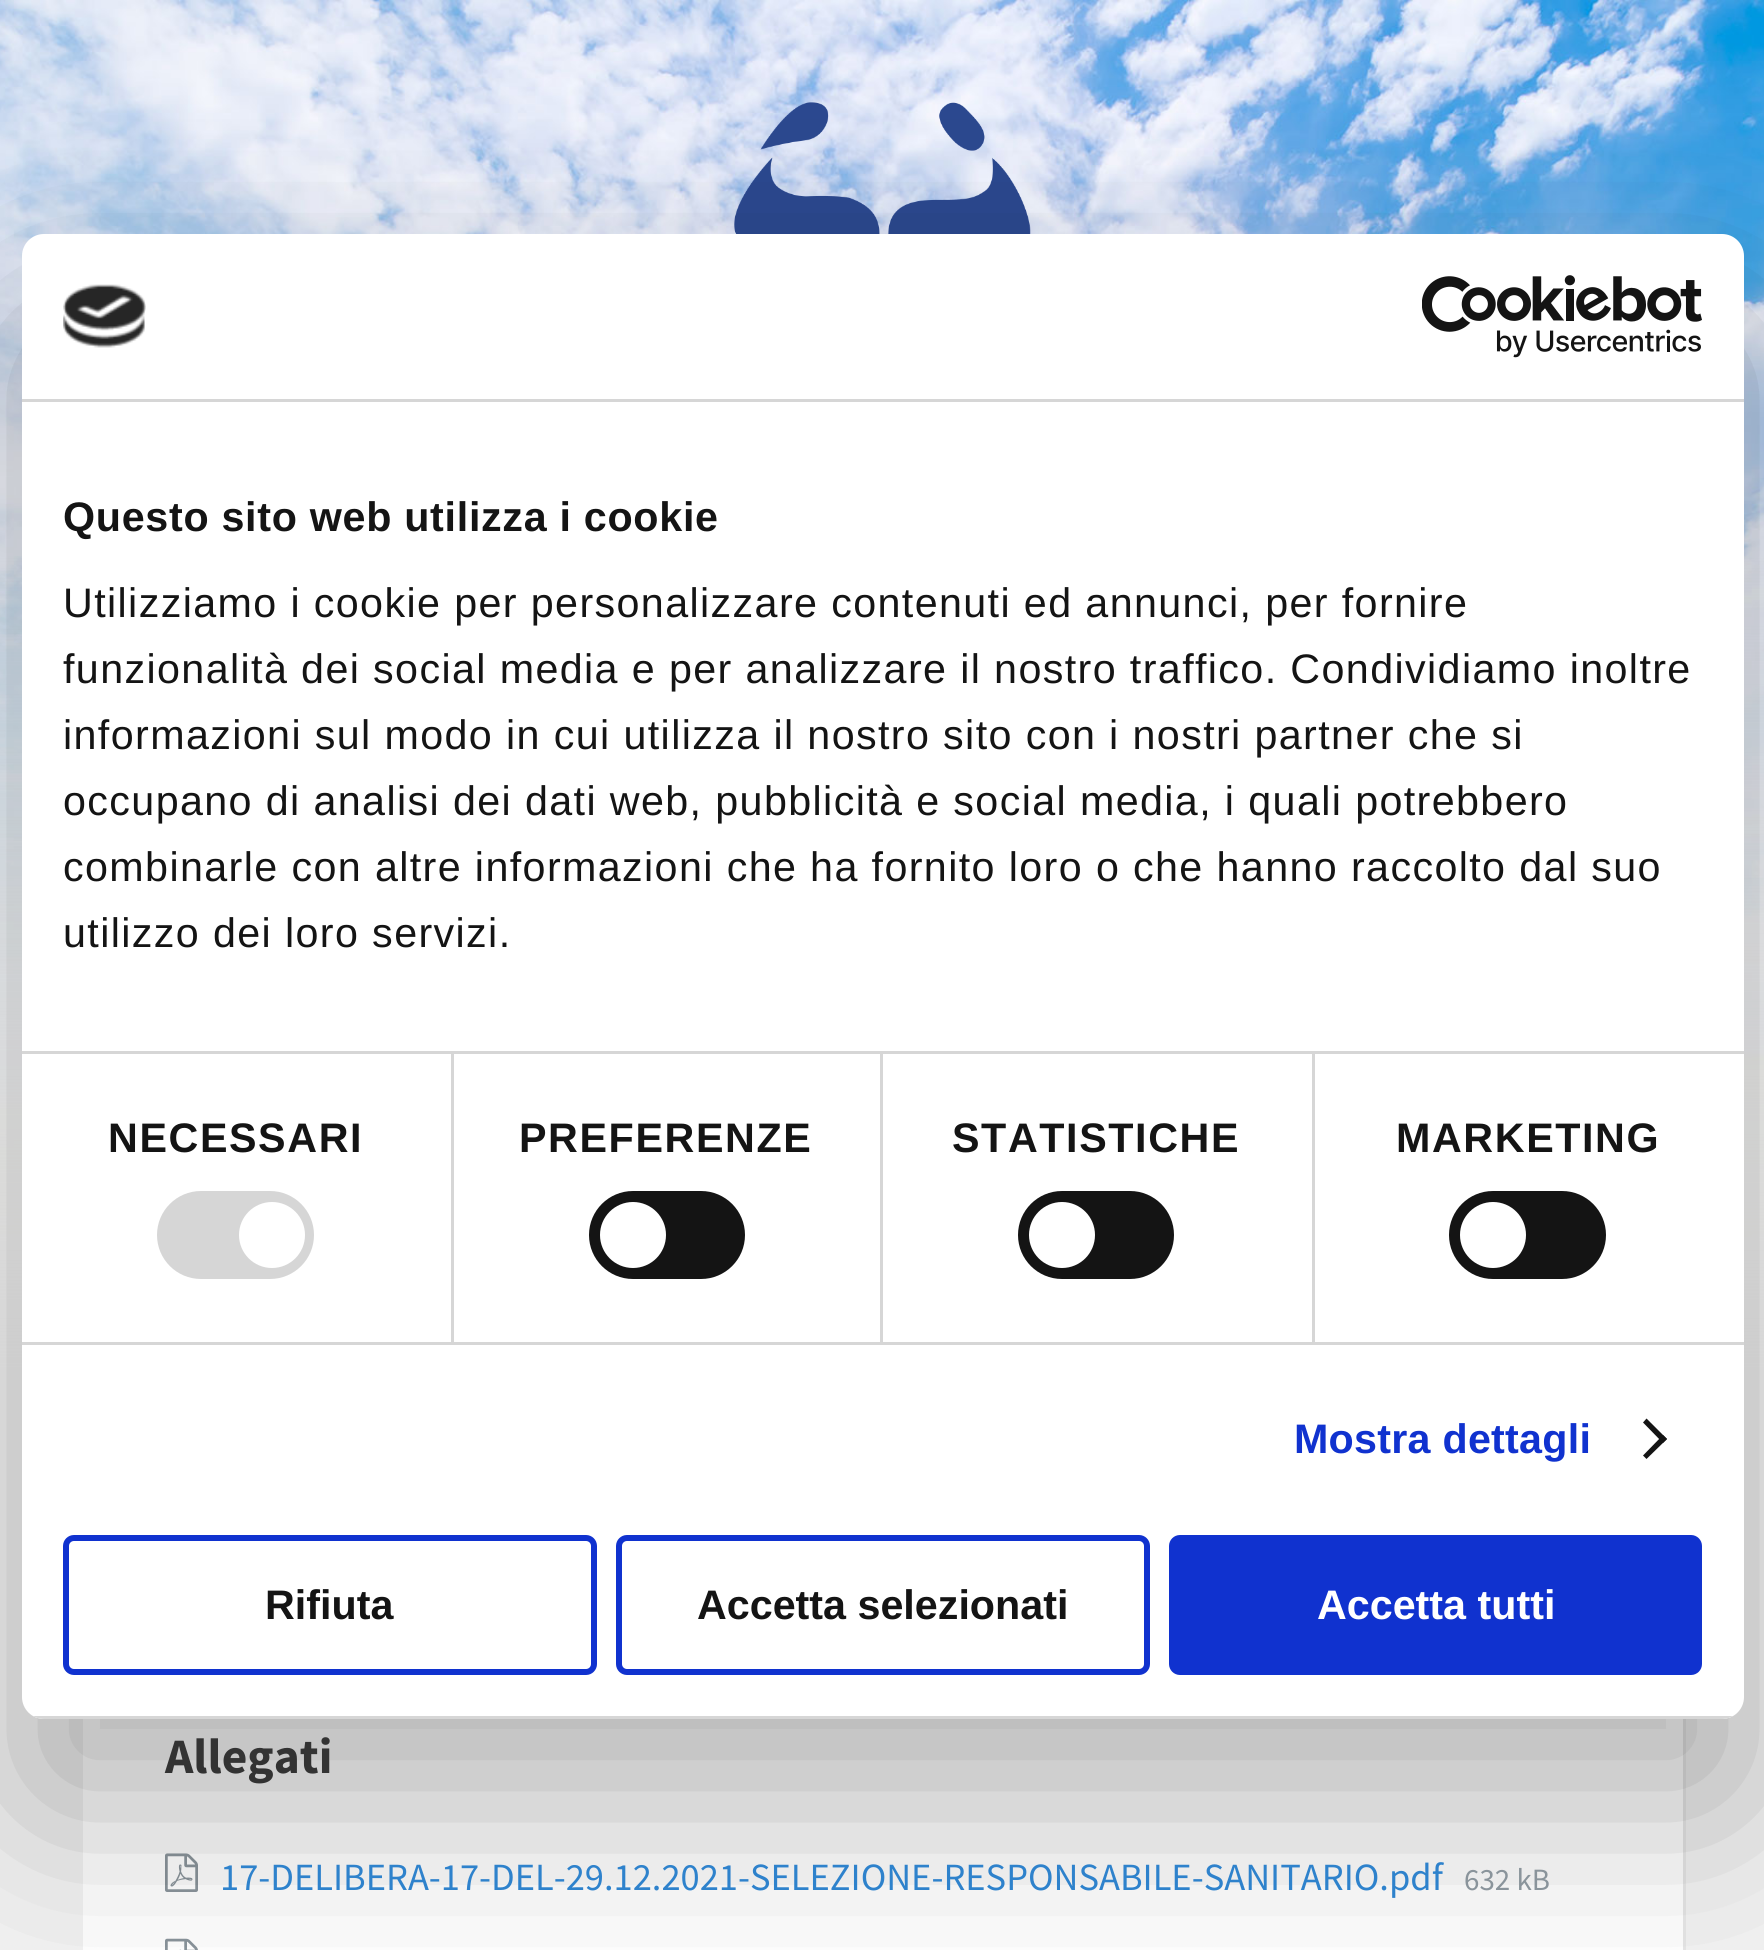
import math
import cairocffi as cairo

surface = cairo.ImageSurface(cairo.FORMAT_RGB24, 1764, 1950)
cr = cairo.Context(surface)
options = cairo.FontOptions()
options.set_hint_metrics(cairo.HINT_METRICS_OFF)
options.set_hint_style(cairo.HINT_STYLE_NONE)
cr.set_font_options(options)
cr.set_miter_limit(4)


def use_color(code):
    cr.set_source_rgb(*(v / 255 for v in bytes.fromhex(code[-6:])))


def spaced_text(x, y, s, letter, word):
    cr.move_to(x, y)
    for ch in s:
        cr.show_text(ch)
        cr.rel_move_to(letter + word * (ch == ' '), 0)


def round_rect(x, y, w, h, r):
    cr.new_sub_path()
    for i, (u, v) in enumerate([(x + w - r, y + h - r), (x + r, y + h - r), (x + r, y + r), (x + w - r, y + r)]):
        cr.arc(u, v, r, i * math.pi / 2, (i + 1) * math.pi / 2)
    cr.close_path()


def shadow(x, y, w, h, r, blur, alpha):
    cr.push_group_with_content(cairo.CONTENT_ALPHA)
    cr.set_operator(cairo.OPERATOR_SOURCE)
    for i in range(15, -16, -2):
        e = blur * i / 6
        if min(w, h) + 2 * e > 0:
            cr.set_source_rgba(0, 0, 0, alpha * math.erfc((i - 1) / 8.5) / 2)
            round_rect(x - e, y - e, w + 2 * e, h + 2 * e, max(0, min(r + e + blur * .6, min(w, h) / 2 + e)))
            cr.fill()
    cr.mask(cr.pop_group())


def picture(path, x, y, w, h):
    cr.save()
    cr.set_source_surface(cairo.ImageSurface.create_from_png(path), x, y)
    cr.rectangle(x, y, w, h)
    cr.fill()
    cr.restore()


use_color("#f2f2f2")
cr.paint()
picture("img3.png", 0, 0, 1764, 1375)
picture("img4.png", 734, 102, 297, 132)
use_color("#e6e6e6")
cr.new_path()
cr.move_to(85, 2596)
cr.line_to(85, 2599)
cr.line_to(1686, 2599)
cr.line_to(1686, 1664)
cr.line_to(1683, 1664)
cr.line_to(1683, 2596)
cr.close_path()
cr.fill()
use_color("#ffffff")
cr.rectangle(83, 1719, 1600, 231)
cr.fill()
picture("img5.png", 165, 1853, 33, 39)
picture("img6.png", 165, 1938, 33, 12)
use_color("#000000")
shadow(22, 322, 1722, 1485, 22, 93.5, 0.3)
use_color("#ffffff")
round_rect(22, 234, 1722, 1485, 22)
cr.fill()
use_color("#d6d6d6")
cr.rectangle(22, 399, 1722, 3)
cr.fill()
picture("img1.png", 63, 284, 83, 64)
picture("img2.png", 1422, 275, 280, 83)
cr.rectangle(451, 1053, 3, 289)
cr.fill()
cr.rectangle(880, 1053, 3, 289)
cr.fill()
cr.rectangle(1312, 1053, 3, 289)
cr.fill()
cr.rectangle(22, 1051, 1722, 3)
cr.fill()
cr.select_font_face("Liberation Sans", cairo.FONT_SLANT_NORMAL, cairo.FONT_WEIGHT_BOLD)
cr.set_font_size(41.25)
use_color("#141414")
spaced_text(63, 531, "Questo sito web utilizza i cookie", 0.7, 0)
cr.select_font_face("Liberation Sans")
spaced_text(63, 617, "Utilizziamo i cookie per personalizzare contenuti ed annunci, per fornire", 1.38, 0)
spaced_text(63, 683, "funzionalità dei social media e per analizzare il nostro traffico. Condividiamo inoltre", 1.38, 0)
spaced_text(63, 749, "informazioni sul modo in cui utilizza il nostro sito con i nostri partner che si", 1.38, 0)
spaced_text(63, 815, "occupano di analisi dei dati web, pubblicità e social media, i quali potrebbero", 1.38, 0)
spaced_text(63, 881, "combinarle con altre informazioni che ha fornito loro o che hanno raccolto dal suo", 1.38, 0)
spaced_text(63, 947, "utilizzo dei loro servizi.", 1.38, 0)
use_color("#d6d6d6")
cr.rectangle(22, 1342, 1722, 3)
cr.fill()
cr.select_font_face("Liberation Sans", cairo.FONT_SLANT_NORMAL, cairo.FONT_WEIGHT_BOLD)
use_color("#141414")
spaced_text(108, 1152, "NECESSARI", 1.6, 0)
use_color("#d6d6d6")
round_rect(157, 1191, 157, 88, 44)
cr.fill()
use_color("#ffffff")
cr.arc(272, 1235, 33, 0, 2 * math.pi)
cr.fill()
use_color("#141414")
spaced_text(519, 1152, "PREFERENZE", 1.6, 0)
round_rect(589, 1191, 156, 88, 44)
cr.fill()
use_color("#ffffff")
cr.arc(633, 1235, 33, 0, 2 * math.pi)
cr.fill()
use_color("#141414")
spaced_text(952, 1152, "STATISTICHE", 1.6, 0)
round_rect(1018, 1191, 156, 88, 44)
cr.fill()
use_color("#ffffff")
cr.arc(1062, 1235, 33, 0, 2 * math.pi)
cr.fill()
use_color("#141414")
spaced_text(1396, 1152, "MARKETING", 1.6, 0)
round_rect(1449, 1191, 157, 88, 44)
cr.fill()
use_color("#ffffff")
cr.arc(1493, 1235, 33, 0, 2 * math.pi)
cr.fill()
use_color("#1032cf")
spaced_text(1294, 1453, "Mostra dettagli", 0.25, 0)
use_color("#141414")
cr.new_path()
cr.move_to(1646.5, 1418.5)
cr.line_to(1667, 1439)
cr.line_to(1663, 1443)
cr.line_to(1643, 1422.5)
cr.close_path()
cr.fill()
cr.new_path()
cr.move_to(1663, 1435)
cr.line_to(1667, 1439)
cr.line_to(1646.5, 1459)
cr.line_to(1643, 1455.5)
cr.close_path()
cr.fill()
cr.save()
round_rect(22, 234, 1722, 1485, 22)
cr.clip()
use_color("#d6d6d6")
cr.rectangle(33, 1716, 1700, 3)
cr.fill()
cr.restore()
round_rect(66, 1538, 528, 134, 8)
use_color("#1032cf")
cr.set_line_width(6)
cr.stroke()
use_color("#141414")
cr.move_to(265, 1619)
cr.show_text("Rifiuta")
round_rect(619, 1538, 528, 134, 8)
use_color("#1032cf")
cr.stroke()
use_color("#141414")
cr.move_to(697, 1619)
cr.show_text("Accetta selezionati")
use_color("#1032cf")
round_rect(1172, 1538, 527, 134, 8)
cr.fill_preserve()
cr.stroke()
use_color("#ffffff")
cr.move_to(1317, 1619)
cr.show_text("Accetta tutti")
cr.select_font_face("Source Sans Pro", cairo.FONT_SLANT_NORMAL, cairo.FONT_WEIGHT_BOLD)
cr.set_font_size(49.5)
use_color("#333333")
cr.move_to(165, 1773)
cr.show_text("Allegati")
cr.select_font_face("Source Sans Pro")
cr.set_font_size(38.5)
use_color("#2e82cc")
cr.move_to(220, 1890)
cr.show_text("17-DELIBERA-17-DEL-29.12.2021-SELEZIONE-RESPONSABILE-SANITARIO.pdf")
cr.set_font_size(31)
use_color("#8a949b")
cr.move_to(1464, 1890)
cr.show_text("632 kB")
surface.write_to_png("result.png")
